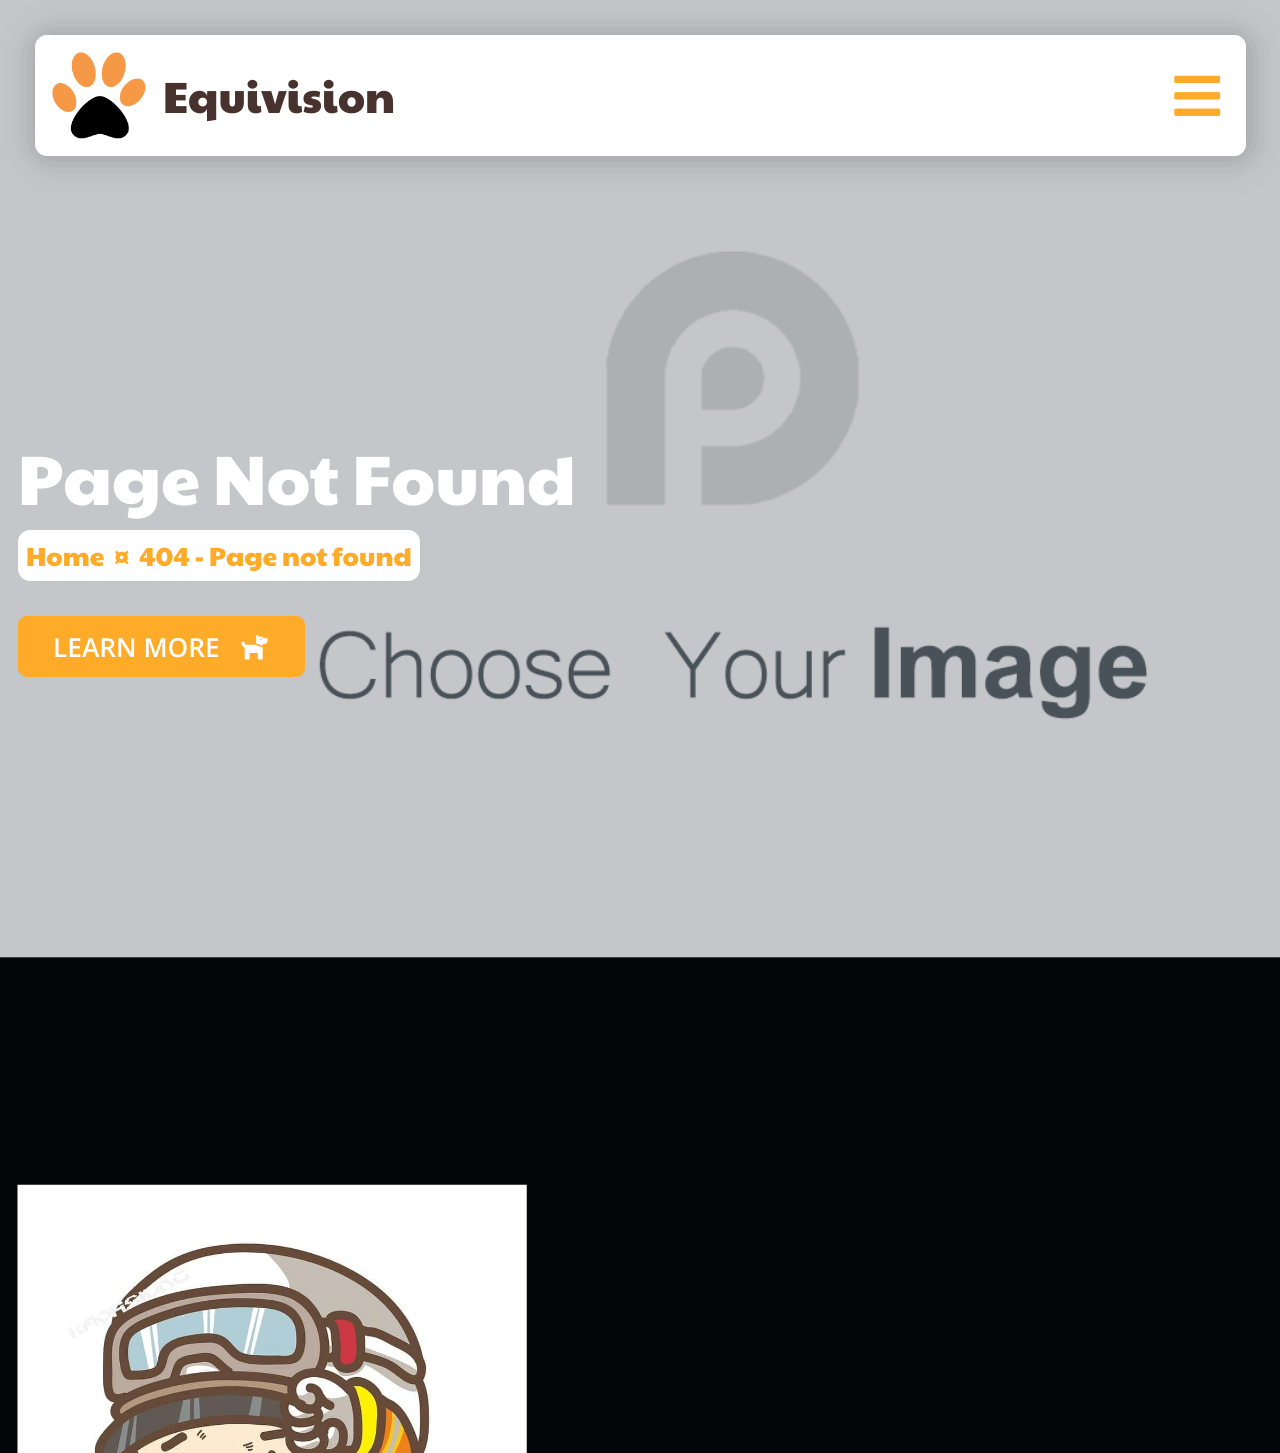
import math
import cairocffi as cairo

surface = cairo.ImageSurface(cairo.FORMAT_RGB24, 1280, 1453)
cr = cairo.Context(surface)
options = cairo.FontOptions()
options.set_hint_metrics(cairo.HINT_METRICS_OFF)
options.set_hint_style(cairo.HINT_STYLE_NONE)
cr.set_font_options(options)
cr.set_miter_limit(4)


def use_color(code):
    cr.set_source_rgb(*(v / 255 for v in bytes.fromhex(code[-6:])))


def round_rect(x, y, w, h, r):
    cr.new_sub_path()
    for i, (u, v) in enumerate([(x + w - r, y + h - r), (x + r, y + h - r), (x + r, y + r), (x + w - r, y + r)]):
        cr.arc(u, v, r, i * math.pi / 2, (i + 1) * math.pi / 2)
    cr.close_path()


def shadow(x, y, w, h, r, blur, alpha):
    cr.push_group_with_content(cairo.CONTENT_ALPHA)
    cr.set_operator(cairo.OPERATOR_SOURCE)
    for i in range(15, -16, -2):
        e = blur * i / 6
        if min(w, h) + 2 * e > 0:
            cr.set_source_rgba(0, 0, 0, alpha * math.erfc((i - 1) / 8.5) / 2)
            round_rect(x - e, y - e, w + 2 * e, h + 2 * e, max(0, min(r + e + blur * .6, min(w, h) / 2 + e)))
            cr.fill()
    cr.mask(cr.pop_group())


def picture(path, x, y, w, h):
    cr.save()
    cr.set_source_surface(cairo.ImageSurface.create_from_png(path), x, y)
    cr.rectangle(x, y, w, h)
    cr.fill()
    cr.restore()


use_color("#030508")
cr.paint()
picture("img3.png", 0, 0, 1280, 958)
use_color("#000000")
shadow(35, 35, 1215, 124, 14, 17.5, 0.21)
use_color("#ffffff")
round_rect(35, 35, 1211, 121, 12)
cr.fill()
picture("img1.png", 52, 52, 94, 87)
cr.select_font_face("Paytone One")
cr.set_font_size(43.75)
use_color("#47322d")
cr.move_to(163, 113)
cr.show_text("Equivision")
use_color("#ffffff")
cr.new_path()
cr.move_to(1005, 35)
cr.line_to(1234, 35)
cr.curve_to(1240.5, 35, 1246, 40.5, 1246, 47)
cr.line_to(1246, 144)
cr.curve_to(1246, 150.5, 1240.5, 156, 1234, 156)
cr.line_to(1005, 156)
cr.close_path()
cr.fill()
picture("img2.png", 1174, 75, 47, 41)
cr.set_font_size(70)
cr.move_to(18, 505)
cr.show_text("Page Not Found")
round_rect(18, 530, 402, 51, 12)
cr.fill()
cr.set_font_size(26.25)
use_color("#feab2a")
cr.move_to(26, 566)
cr.show_text("Home")
cr.select_font_face("Paytone One", cairo.FONT_SLANT_NORMAL, cairo.FONT_WEIGHT_BOLD)
cr.move_to(114, 566)
cr.show_text("¤")
cr.select_font_face("Paytone One")
cr.move_to(139, 566)
cr.show_text("404 - Page not found")
round_rect(18, 616, 287, 61, 9)
cr.fill()
cr.select_font_face("Open Sans SemiBold")
use_color("#ffffff")
cr.move_to(53, 657)
cr.show_text("LEARN MORE")
picture("img4.png", 241, 635, 27, 25)
picture("img5.png", 17, 1184, 510, 269)
surface.write_to_png("result.png")
